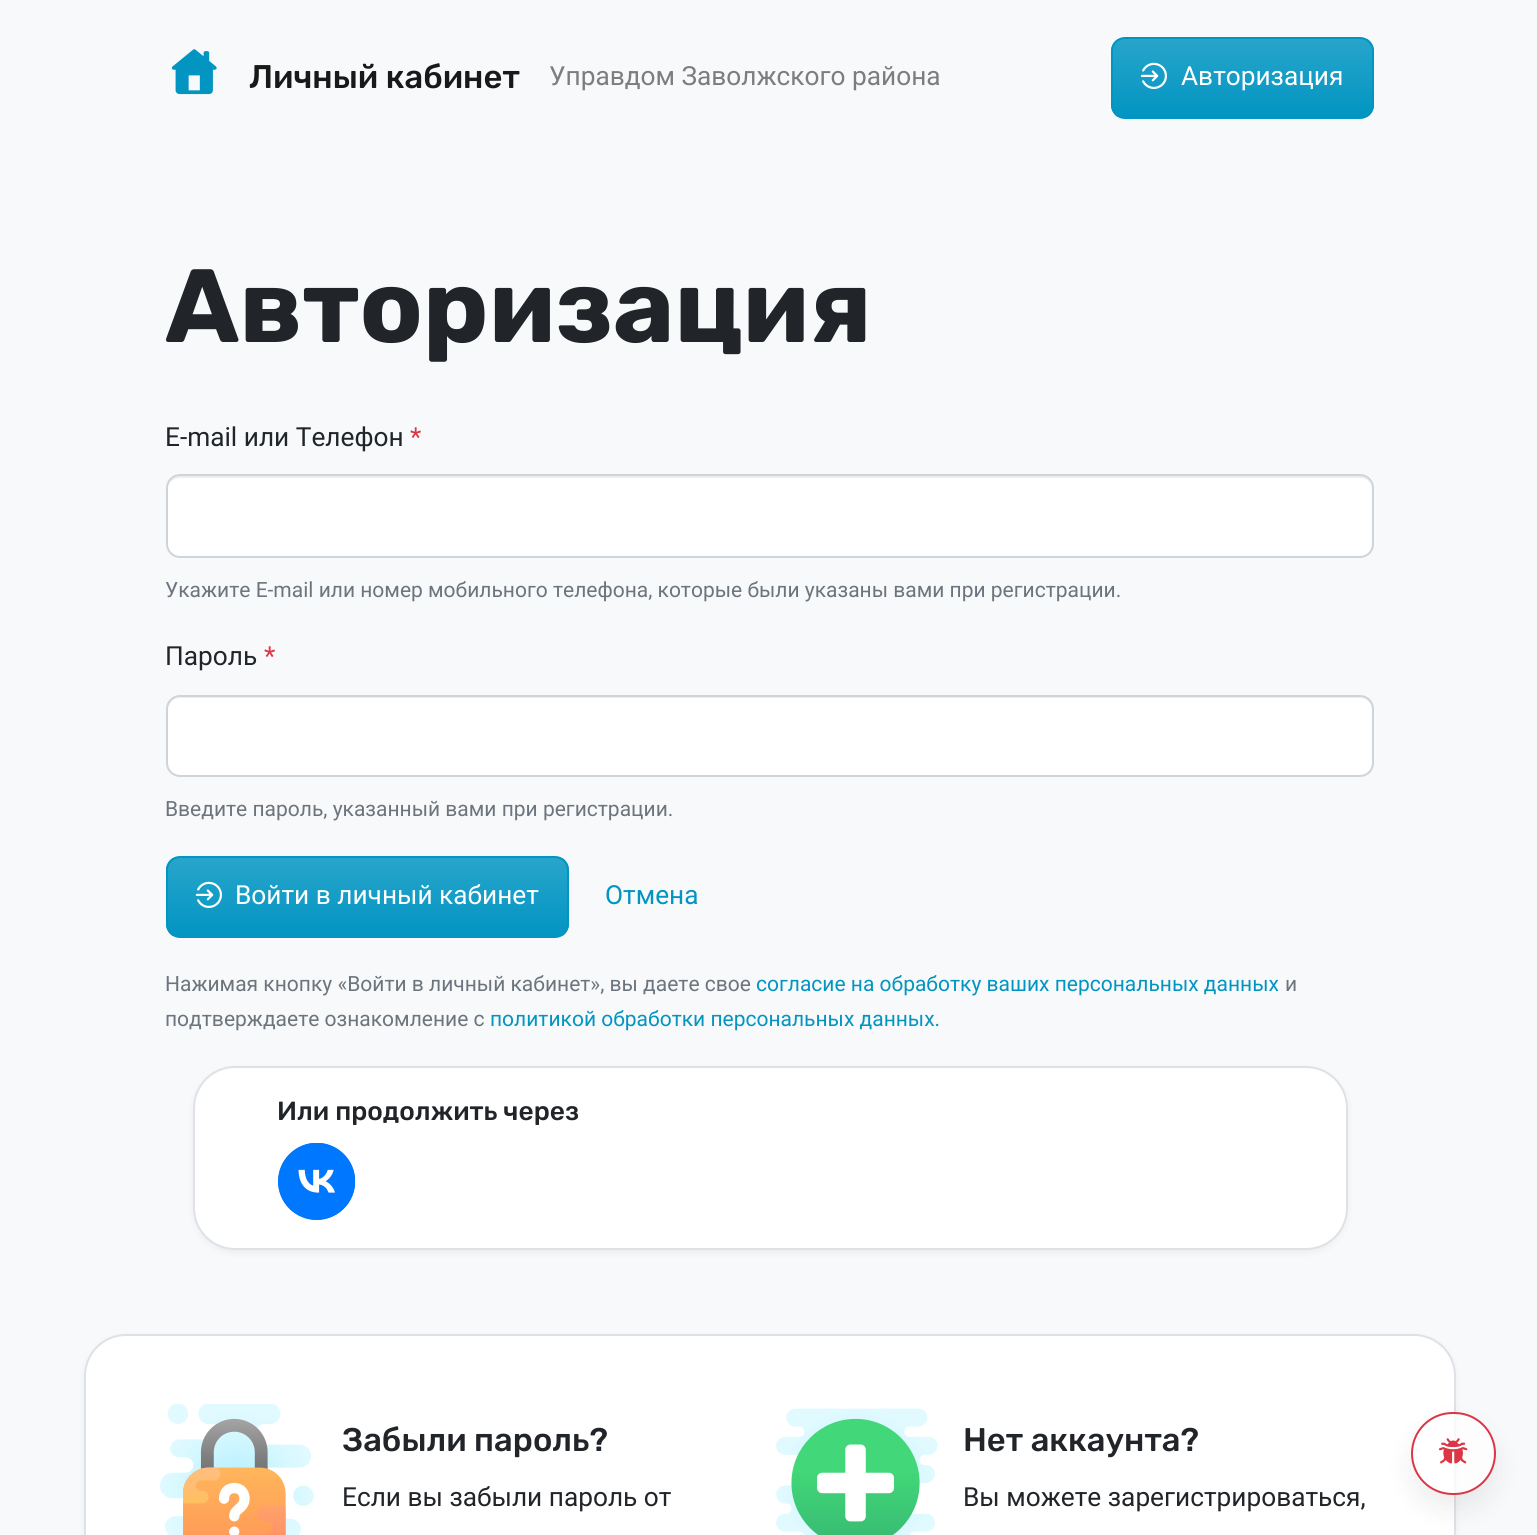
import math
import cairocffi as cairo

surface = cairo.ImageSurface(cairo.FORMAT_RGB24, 1537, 1535)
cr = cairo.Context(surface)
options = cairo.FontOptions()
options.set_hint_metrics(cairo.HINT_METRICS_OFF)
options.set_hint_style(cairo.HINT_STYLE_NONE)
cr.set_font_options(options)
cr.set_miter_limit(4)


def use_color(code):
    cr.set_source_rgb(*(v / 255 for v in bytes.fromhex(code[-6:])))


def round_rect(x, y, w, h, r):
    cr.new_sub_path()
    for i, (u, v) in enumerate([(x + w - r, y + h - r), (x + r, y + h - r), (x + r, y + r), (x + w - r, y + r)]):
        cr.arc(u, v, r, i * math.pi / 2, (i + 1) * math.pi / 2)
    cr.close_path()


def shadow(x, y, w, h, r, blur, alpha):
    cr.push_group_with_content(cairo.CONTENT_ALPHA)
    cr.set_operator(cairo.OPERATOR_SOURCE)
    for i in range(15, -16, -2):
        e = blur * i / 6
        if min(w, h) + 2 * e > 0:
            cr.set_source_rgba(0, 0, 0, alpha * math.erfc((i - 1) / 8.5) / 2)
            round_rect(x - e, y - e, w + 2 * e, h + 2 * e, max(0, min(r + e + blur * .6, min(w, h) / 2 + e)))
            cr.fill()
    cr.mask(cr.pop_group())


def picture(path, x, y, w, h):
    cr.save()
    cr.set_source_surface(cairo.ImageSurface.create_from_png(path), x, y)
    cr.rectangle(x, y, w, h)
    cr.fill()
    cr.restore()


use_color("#f8f9fa")
cr.paint()
picture("img1.png", 171, 49, 46, 46)
cr.select_font_face("Rubik Medium")
cr.set_font_size(32.75)
use_color("#191919")
cr.move_to(249, 88)
cr.show_text("Личный кабинет")
cr.select_font_face("Roboto")
cr.set_font_size(26.25)
use_color("#7c7d7d")
cr.move_to(549, 85)
cr.show_text("Управдом Заволжского района")
cr.save()
round_rect(1111, 37, 263, 82, 14)
cr.clip()
gradient = cairo.LinearGradient(1243, 38, 1243, 117)
gradient.add_color_stop_rgba(0, 0.157, 0.647, 0.796, 1)
gradient.add_color_stop_rgba(1, 0.008, 0.584, 0.761, 1)
cr.set_source(gradient)
cr.rectangle(1111, 39, 263, 78)
cr.fill()
cr.restore()
round_rect(1112, 38, 261, 80, 13)
use_color("#0295c2")
cr.stroke()
picture("img2.png", 1140, 62, 27, 27)
use_color("#ffffff")
cr.move_to(1181, 85)
cr.show_text("Авторизация")
cr.select_font_face("Rubik", cairo.FONT_SLANT_NORMAL, cairo.FONT_WEIGHT_BOLD)
cr.set_font_size(104)
use_color("#212529")
cr.move_to(165, 342)
cr.show_text("Авторизация")
cr.select_font_face("Roboto")
cr.set_font_size(26.25)
cr.move_to(165, 446)
cr.show_text("E-mail или Телефон")
use_color("#dc3545")
cr.move_to(410, 446)
cr.show_text("*")
use_color("#ffffff")
round_rect(168, 476, 1204, 81, 12)
cr.fill()
cr.set_source_rgba(0, 0, 0, 0.07)
cr.new_path()
cr.move_to(180, 478)
cr.line_to(1360, 478)
cr.curve_to(1367, 478, 1372, 483, 1372, 490)
cr.curve_to(1372, 483, 1368, 476, 1360, 476)
cr.line_to(180, 476)
cr.curve_to(172, 476, 168, 483, 168, 490)
cr.curve_to(168, 483, 173, 478, 180, 478)
cr.close_path()
cr.fill()
round_rect(167, 475, 1206, 82, 13)
use_color("#ced4da")
cr.stroke()
cr.set_font_size(21)
use_color("#6c757d")
cr.move_to(165, 597)
cr.show_text("Укажите E-mail или номер мобильного телефона, которые были указаны вами при регистрации.")
cr.set_font_size(26.25)
use_color("#212529")
cr.move_to(165, 665)
cr.show_text("Пароль")
use_color("#dc3545")
cr.move_to(264, 665)
cr.show_text("*")
use_color("#ffffff")
round_rect(168, 697, 1204, 78, 12)
cr.fill()
cr.set_source_rgba(0, 0, 0, 0.07)
cr.new_path()
cr.move_to(180, 698)
cr.line_to(1360, 698)
cr.curve_to(1367, 698, 1372, 704, 1372, 710)
cr.line_to(1372, 709)
cr.curve_to(1372, 702, 1367, 697, 1360, 697)
cr.line_to(180, 697)
cr.curve_to(173, 697, 168, 702, 168, 709)
cr.line_to(168, 710)
cr.curve_to(168, 704, 173, 698, 180, 698)
cr.close_path()
cr.fill()
round_rect(167, 696, 1206, 80, 13)
use_color("#ced4da")
cr.stroke()
cr.set_font_size(21)
use_color("#6c757d")
cr.move_to(165, 816)
cr.show_text("Введите пароль, указанный вами при регистрации.")
cr.save()
round_rect(166, 856, 403, 82, 14)
cr.clip()
gradient = cairo.LinearGradient(368, 858, 368, 936)
gradient.add_color_stop_rgba(0, 0.157, 0.647, 0.796, 1)
gradient.add_color_stop_rgba(1, 0.008, 0.584, 0.761, 1)
cr.set_source(gradient)
cr.rectangle(166, 858, 403, 78)
cr.fill()
cr.restore()
round_rect(167, 857, 401, 80, 13)
use_color("#0295c2")
cr.stroke()
picture("img3.png", 195, 881, 27, 27)
cr.set_font_size(26.25)
use_color("#ffffff")
cr.move_to(235, 904)
cr.show_text("Войти в личный кабинет")
use_color("#0295c2")
cr.move_to(605, 904)
cr.show_text("Отмена")
cr.set_font_size(21)
use_color("#6c757d")
cr.move_to(165, 991)
cr.show_text("Нажимая кнопку «Войти в личный кабинет», вы даете свое")
use_color("#0295c2")
cr.move_to(756, 991)
cr.show_text("согласие на обработку ваших персональных данных")
use_color("#6c757d")
cr.move_to(1285, 991)
cr.show_text("и")
cr.move_to(165, 1026)
cr.show_text("подтверждаете ознакомление с")
use_color("#0295c2")
cr.move_to(490, 1026)
cr.show_text("политикой обработки персональных данных.")
use_color("#000000")
shadow(193, 1069, 1155, 184, 42, 3.5, 0.05)
use_color("#ffffff")
round_rect(194, 1067, 1153, 182, 41)
cr.fill_preserve()
use_color("#dee2e6")
cr.stroke()
cr.select_font_face("Rubik Medium")
cr.set_font_size(26.25)
use_color("#212529")
cr.move_to(277, 1120)
cr.show_text("Или продолжить через")
use_color("#0077ff")
cr.new_path()
cr.arc(316.5, 1181.5, 38.5, 0, 2 * math.pi)
cr.fill()
picture("img4.png", 278, 1143, 77, 77)
use_color("#000000")
shadow(84, 1337, 1372, 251, 42, 3.5, 0.05)
use_color("#ffffff")
round_rect(85, 1335, 1370, 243, 41)
cr.fill_preserve()
use_color("#dee2e6")
cr.stroke()
picture("img5.png", 160, 1404, 154, 131)
cr.set_font_size(32.75)
use_color("#212529")
cr.move_to(342, 1451)
cr.show_text("Забыли пароль?")
cr.select_font_face("Roboto")
cr.set_font_size(26.25)
cr.move_to(342, 1506)
cr.show_text("Если вы забыли пароль от")
picture("img6.png", 776, 1408, 162, 127)
cr.select_font_face("Rubik Medium")
cr.set_font_size(32.75)
cr.move_to(963, 1451)
cr.show_text("Нет аккаунта?")
cr.select_font_face("Roboto")
cr.set_font_size(26.25)
cr.move_to(963, 1506)
cr.show_text("Вы можете зарегистрироваться,")
cr.save()
cr.set_fill_rule(cairo.FILL_RULE_EVEN_ODD)
cr.new_path()
cr.move_to(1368, 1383)
cr.line_to(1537, 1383)
cr.line_to(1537, 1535)
cr.line_to(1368, 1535)
cr.close_path()
cr.move_to(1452.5, 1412)
cr.line_to(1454.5, 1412)
cr.curve_to(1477.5, 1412, 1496, 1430.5, 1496, 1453.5)
cr.curve_to(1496, 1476.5, 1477.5, 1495, 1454.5, 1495)
cr.line_to(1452.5, 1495)
cr.curve_to(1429.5, 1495, 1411, 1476.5, 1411, 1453.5)
cr.curve_to(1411, 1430.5, 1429.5, 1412, 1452.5, 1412)
cr.close_path()
cr.clip()
use_color("#000000")
shadow(1411, 1426, 85, 83, 41.5, 14, 0.07)
cr.restore()
cr.set_source_rgba(1, 1, 1, 0.75)
round_rect(1412, 1413, 83, 81, 40.5)
cr.fill_preserve()
use_color("#dc3545")
cr.stroke()
picture("img7.png", 1439, 1438, 29, 26)
surface.write_to_png("result.png")
